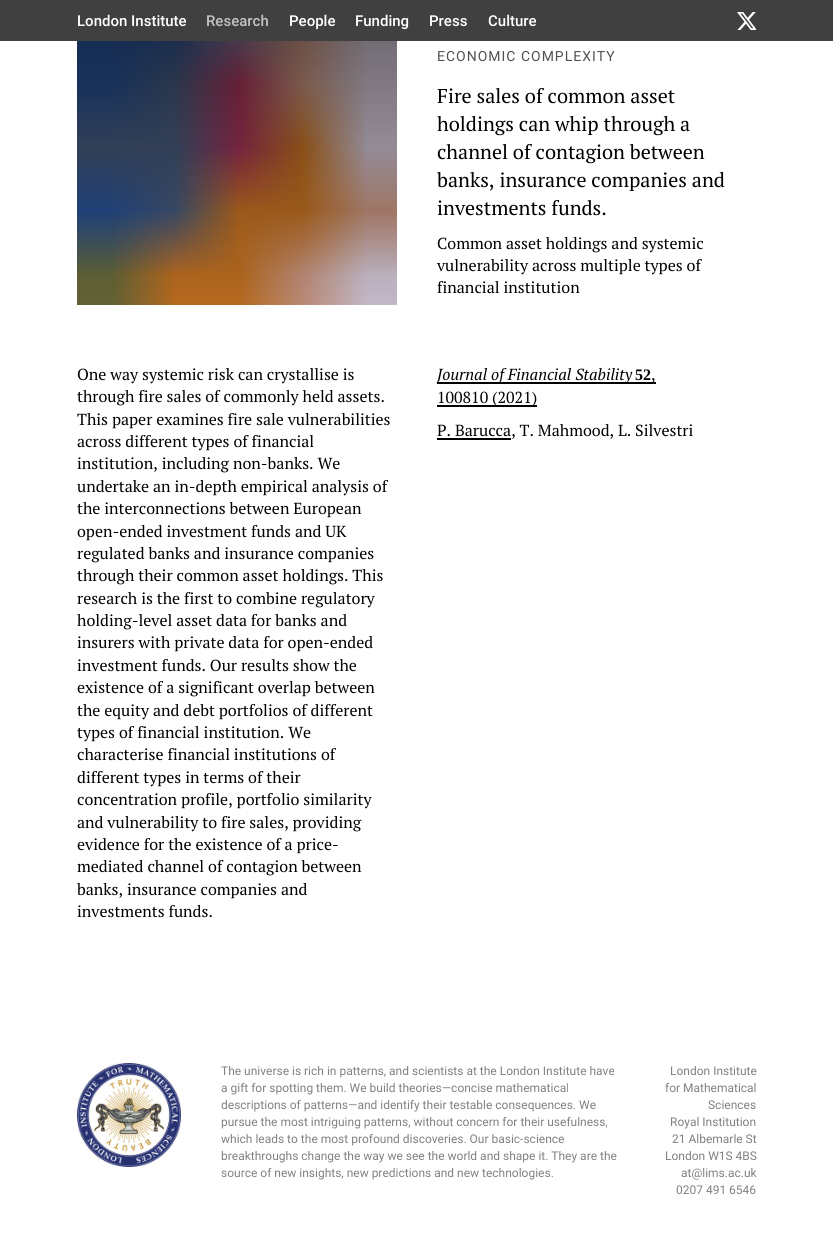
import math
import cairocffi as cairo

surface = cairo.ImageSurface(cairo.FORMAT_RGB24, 833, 1239)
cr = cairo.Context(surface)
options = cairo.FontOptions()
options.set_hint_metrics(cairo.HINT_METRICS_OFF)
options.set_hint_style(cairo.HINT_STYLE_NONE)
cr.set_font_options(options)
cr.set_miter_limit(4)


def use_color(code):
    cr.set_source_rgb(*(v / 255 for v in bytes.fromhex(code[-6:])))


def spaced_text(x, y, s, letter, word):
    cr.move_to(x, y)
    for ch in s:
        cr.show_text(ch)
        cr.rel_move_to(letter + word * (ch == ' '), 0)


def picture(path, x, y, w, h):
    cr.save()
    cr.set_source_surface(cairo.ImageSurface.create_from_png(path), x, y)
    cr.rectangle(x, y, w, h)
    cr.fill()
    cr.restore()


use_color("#ffffff")
cr.paint()
use_color("#404040")
cr.rectangle(0, 0, 833, 41)
cr.fill()
cr.select_font_face("Roboto Medium")
cr.set_font_size(15)
use_color("#ffffff")
cr.move_to(77, 26)
cr.show_text("London Institute")
use_color("#c2c2c2")
cr.move_to(206, 26)
cr.show_text("Research")
use_color("#ffffff")
cr.move_to(289, 26)
cr.show_text("People")
cr.move_to(355, 26)
cr.show_text("Funding")
cr.move_to(429, 26)
cr.show_text("Press")
cr.move_to(488, 26)
cr.show_text("Culture")
picture("img1.png", 737, 12, 19, 18)
picture("img2.png", 77, 41, 320, 264)
cr.select_font_face("Roboto")
cr.set_font_size(14)
use_color("#505050")
spaced_text(437, 61, "ECONOMIC COMPLEXITY", 1, 0)
cr.select_font_face("PT Serif")
cr.set_font_size(20)
use_color("#000000")
cr.move_to(437, 103)
cr.show_text("Fire sales of common asset")
cr.move_to(437, 131)
cr.show_text("holdings can whip through a")
cr.move_to(437, 159)
cr.show_text("channel of contagion between")
cr.move_to(437, 187)
cr.show_text("banks, insurance companies and")
cr.move_to(437, 215)
cr.show_text("investments funds.")
cr.set_font_size(16)
cr.move_to(437, 249)
cr.show_text("Common asset holdings and systemic")
cr.move_to(437, 271)
cr.show_text("vulnerability across multiple types of")
cr.move_to(437, 293)
cr.show_text("financial institution")
cr.move_to(77, 380)
cr.show_text("One way systemic risk can crystallise is")
cr.move_to(77, 402)
cr.show_text("through fire sales of commonly held assets.")
cr.move_to(77, 425)
cr.show_text("This paper examines fire sale vulnerabilities")
cr.move_to(77, 447)
cr.show_text("across different types of financial")
cr.move_to(77, 469)
cr.show_text("institution, including non-banks. We")
cr.move_to(77, 492)
cr.show_text("undertake an in-depth empirical analysis of")
cr.move_to(77, 514)
cr.show_text("the interconnections between European")
cr.move_to(77, 537)
cr.show_text("open-ended investment funds and UK")
cr.move_to(77, 559)
cr.show_text("regulated banks and insurance companies")
cr.move_to(77, 581)
cr.show_text("through their common asset holdings. This")
cr.move_to(77, 604)
cr.show_text("research is the first to combine regulatory")
cr.move_to(77, 626)
cr.show_text("holding-level asset data for banks and")
cr.move_to(77, 648)
cr.show_text("insurers with private data for open-ended")
cr.move_to(77, 671)
cr.show_text("investment funds. Our results show the")
cr.move_to(77, 693)
cr.show_text("existence of a significant overlap between")
cr.move_to(77, 716)
cr.show_text("the equity and debt portfolios of different")
cr.move_to(77, 738)
cr.show_text("types of financial institution. We")
cr.move_to(77, 760)
cr.show_text("characterise financial institutions of")
cr.move_to(77, 783)
cr.show_text("different types in terms of their")
cr.move_to(77, 805)
cr.show_text("concentration profile, portfolio similarity")
cr.move_to(77, 828)
cr.show_text("and vulnerability to fire sales, providing")
cr.move_to(77, 850)
cr.show_text("evidence for the existence of a price-")
cr.move_to(77, 872)
cr.show_text("mediated channel of contagion between")
cr.move_to(77, 895)
cr.show_text("banks, insurance companies and")
cr.move_to(77, 917)
cr.show_text("investments funds.")
cr.rectangle(437, 382, 194, 2)
cr.fill()
cr.select_font_face("PT Serif", cairo.FONT_SLANT_ITALIC)
cr.move_to(437, 380)
cr.show_text("Journal of Financial Stability")
cr.select_font_face("Liberation Serif", cairo.FONT_SLANT_NORMAL, cairo.FONT_WEIGHT_BOLD)
cr.move_to(635, 380)
cr.show_text("52")
cr.rectangle(631, 382, 25, 2)
cr.fill()
cr.select_font_face("PT Serif")
cr.move_to(651, 380)
cr.show_text(",")
cr.rectangle(437, 405, 100, 2)
cr.fill()
cr.move_to(437, 403)
cr.show_text("100810 (2021)")
cr.rectangle(437, 438, 74, 2)
cr.fill()
cr.move_to(437, 436)
cr.show_text("P. Barucca, T. Mahmood, L. Silvestri")
picture("img3.png", 77, 1063, 104, 104)
cr.select_font_face("Roboto")
cr.set_font_size(12)
use_color("#808080")
cr.move_to(221, 1075)
cr.show_text("The universe is rich in patterns, and scientists at the London Institute have")
cr.move_to(221, 1092)
cr.show_text("a gift for spotting them. We build theories—concise mathematical")
cr.move_to(221, 1109)
cr.show_text("descriptions of patterns—and identify their testable consequences. We")
cr.move_to(221, 1126)
cr.show_text("pursue the most intriguing patterns, without concern for their usefulness,")
cr.move_to(221, 1143)
cr.show_text("which leads to the most profound discoveries. Our basic-science")
cr.move_to(221, 1160)
cr.show_text("breakthroughs change the way we see the world and shape it. They are the")
cr.move_to(221, 1177)
cr.show_text("source of new insights, new predictions and new technologies.")
cr.move_to(670, 1075)
cr.show_text("London Institute")
cr.move_to(665, 1092)
cr.show_text("for Mathematical")
cr.move_to(708, 1109)
cr.show_text("Sciences")
cr.move_to(670, 1126)
cr.show_text("Royal Institution")
cr.move_to(672, 1143)
cr.show_text("21 Albemarle St")
cr.move_to(665, 1160)
cr.show_text("London W1S 4BS")
cr.move_to(681, 1177)
cr.show_text("at@lims.ac.uk")
cr.move_to(676, 1194)
cr.show_text("0207 491 6546")
surface.write_to_png("result.png")
